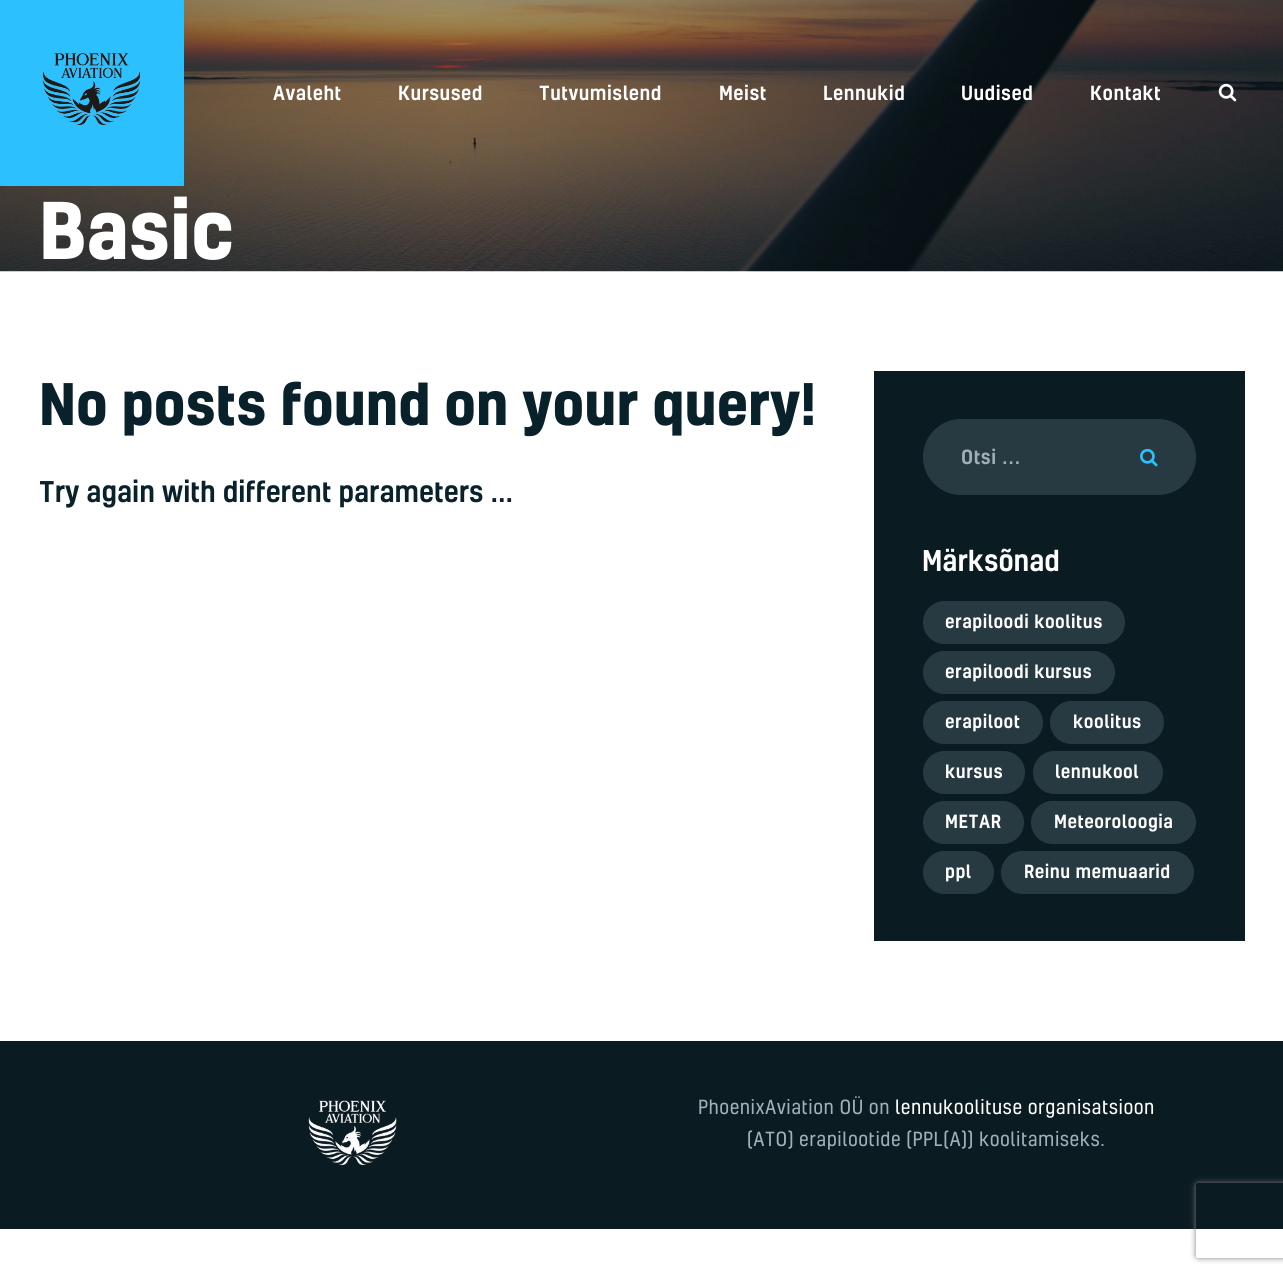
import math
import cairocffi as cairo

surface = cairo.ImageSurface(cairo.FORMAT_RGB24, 1283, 1274)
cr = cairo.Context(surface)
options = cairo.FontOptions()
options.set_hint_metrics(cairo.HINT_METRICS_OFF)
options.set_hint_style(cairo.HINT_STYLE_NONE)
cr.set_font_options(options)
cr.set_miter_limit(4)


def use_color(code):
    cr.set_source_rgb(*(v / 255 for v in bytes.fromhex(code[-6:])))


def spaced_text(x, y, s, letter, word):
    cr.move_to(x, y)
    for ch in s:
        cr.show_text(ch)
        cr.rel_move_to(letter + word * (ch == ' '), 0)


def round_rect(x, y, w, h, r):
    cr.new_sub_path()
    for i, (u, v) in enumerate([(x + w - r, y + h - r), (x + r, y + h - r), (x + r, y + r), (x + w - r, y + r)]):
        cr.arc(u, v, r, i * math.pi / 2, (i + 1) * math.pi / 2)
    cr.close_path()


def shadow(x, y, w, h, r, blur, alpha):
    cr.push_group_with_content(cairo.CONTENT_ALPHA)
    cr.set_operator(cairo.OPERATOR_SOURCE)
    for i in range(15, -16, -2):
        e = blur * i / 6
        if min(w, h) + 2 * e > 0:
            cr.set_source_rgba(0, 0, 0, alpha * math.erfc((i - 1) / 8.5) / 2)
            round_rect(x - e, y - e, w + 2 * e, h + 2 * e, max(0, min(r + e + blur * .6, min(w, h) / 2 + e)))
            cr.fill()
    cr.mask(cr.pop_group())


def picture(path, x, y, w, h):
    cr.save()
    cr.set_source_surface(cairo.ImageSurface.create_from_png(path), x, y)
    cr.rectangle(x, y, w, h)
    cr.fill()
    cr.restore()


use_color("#ffffff")
cr.paint()
picture("img1.png", 0, 0, 1283, 272)
use_color("#2cc0ff")
cr.rectangle(0, 0, 184, 186)
cr.fill()
picture("img2.png", 42, 53, 99, 72)
cr.select_font_face("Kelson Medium")
cr.set_font_size(18.75)
use_color("#ffffff")
spaced_text(273, 100, "Avaleht", 0.5, 0)
spaced_text(398, 100, "Kursused", 0.5, 0)
spaced_text(539, 100, "Tutvumislend", 0.5, 0)
spaced_text(719, 100, "Meist", 0.5, 0)
spaced_text(823, 100, "Lennukid", 0.5, 0)
spaced_text(961, 100, "Uudised", 0.5, 0)
spaced_text(1090, 100, "Kontakt", 0.5, 0)
picture("img3.png", 1218, 83, 19, 19)
cr.select_font_face("Kelson", cairo.FONT_SLANT_NORMAL, cairo.FONT_WEIGHT_BOLD)
cr.set_font_size(75)
cr.move_to(39, 259)
cr.show_text("Basic")
cr.set_font_size(55)
use_color("#09212b")
cr.move_to(39, 425)
cr.show_text("No posts found on your query!")
cr.select_font_face("Kelson Medium")
cr.set_font_size(27.5)
cr.move_to(39, 502)
cr.show_text("Try again with different parameters ...")
use_color("#0a1b22")
cr.rectangle(874, 371, 371, 570)
cr.fill()
use_color("#283a41")
round_rect(923.5, 419.5, 272, 75, 37.5)
cr.fill_preserve()
cr.set_line_width(1)
cr.stroke()
cr.set_font_size(18.75)
use_color("#a1b0b8")
spaced_text(961, 464, "Otsi …", 0.5, 0)
picture("img4.png", 1140, 448, 18, 19)
cr.set_font_size(27.5)
use_color("#ffffff")
cr.move_to(922, 571)
cr.show_text("Märksõnad")
use_color("#283a41")
round_rect(923, 601, 202, 43, 21.5)
cr.fill()
cr.set_font_size(17.5)
use_color("#ffffff")
spaced_text(945, 628, "erapiloodi koolitus", 0.5, 0)
use_color("#283a41")
round_rect(923, 651, 192, 43, 21.5)
cr.fill()
use_color("#ffffff")
spaced_text(945, 678, "erapiloodi kursus", 0.5, 0)
use_color("#283a41")
round_rect(923, 701, 120, 43, 21.5)
cr.fill()
use_color("#ffffff")
spaced_text(945, 728, "erapiloot", 0.5, 0)
use_color("#283a41")
round_rect(1050, 701, 114, 43, 21.5)
cr.fill()
use_color("#ffffff")
spaced_text(1073, 728, "koolitus", 0.5, 0)
use_color("#283a41")
round_rect(923, 751, 102, 43, 21.5)
cr.fill()
use_color("#ffffff")
spaced_text(945, 778, "kursus", 0.5, 0)
use_color("#283a41")
round_rect(1033, 751, 130, 43, 21.5)
cr.fill()
use_color("#ffffff")
spaced_text(1055, 778, "lennukool", 0.5, 0)
use_color("#283a41")
round_rect(923, 801, 101, 43, 21.5)
cr.fill()
use_color("#ffffff")
spaced_text(945, 828, "METAR", 0.5, 0)
use_color("#283a41")
round_rect(1031, 801, 165, 43, 21.5)
cr.fill()
use_color("#ffffff")
spaced_text(1054, 828, "Meteoroloogia", 0.5, 0)
use_color("#283a41")
round_rect(923, 851, 71, 43, 21.5)
cr.fill()
use_color("#ffffff")
spaced_text(945, 878, "ppl", 0.5, 0)
use_color("#283a41")
round_rect(1001, 851, 193, 43, 21.5)
cr.fill()
use_color("#ffffff")
spaced_text(1024, 878, "Reinu memuaarid", 0.5, 0)
use_color("#0a1b22")
cr.rectangle(0, 1041, 1283, 188)
cr.fill()
picture("img5.png", 308, 1100, 89, 66)
cr.select_font_face("Kelson")
cr.set_font_size(18.75)
use_color("#a1b0b8")
spaced_text(698, 1114, "PhoenixAviation OÜ on", 0.5, 0)
use_color("#ffffff")
spaced_text(895, 1114, "lennukoolituse organisatsioon", 0.5, 0)
use_color("#a1b0b8")
spaced_text(747, 1146, "(ATO) erapilootide (PPL(A)) koolitamiseks.", 0.5, 0)
cr.save()
cr.set_fill_rule(cairo.FILL_RULE_EVEN_ODD)
cr.new_path()
cr.move_to(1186, 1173)
cr.line_to(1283, 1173)
cr.line_to(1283, 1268)
cr.line_to(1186, 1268)
cr.close_path()
cr.move_to(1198.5, 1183)
cr.line_to(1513.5, 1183)
cr.curve_to(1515, 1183, 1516, 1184, 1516, 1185.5)
cr.line_to(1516, 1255.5)
cr.curve_to(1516, 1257, 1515, 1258, 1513.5, 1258)
cr.line_to(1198.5, 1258)
cr.curve_to(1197, 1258, 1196, 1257, 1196, 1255.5)
cr.line_to(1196, 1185.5)
cr.curve_to(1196, 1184, 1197, 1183, 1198.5, 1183)
cr.close_path()
cr.clip()
use_color("#808080")
shadow(1196, 1183, 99, 75, 2.5, 3, 1)
cr.restore()
surface.write_to_png("result.png")
